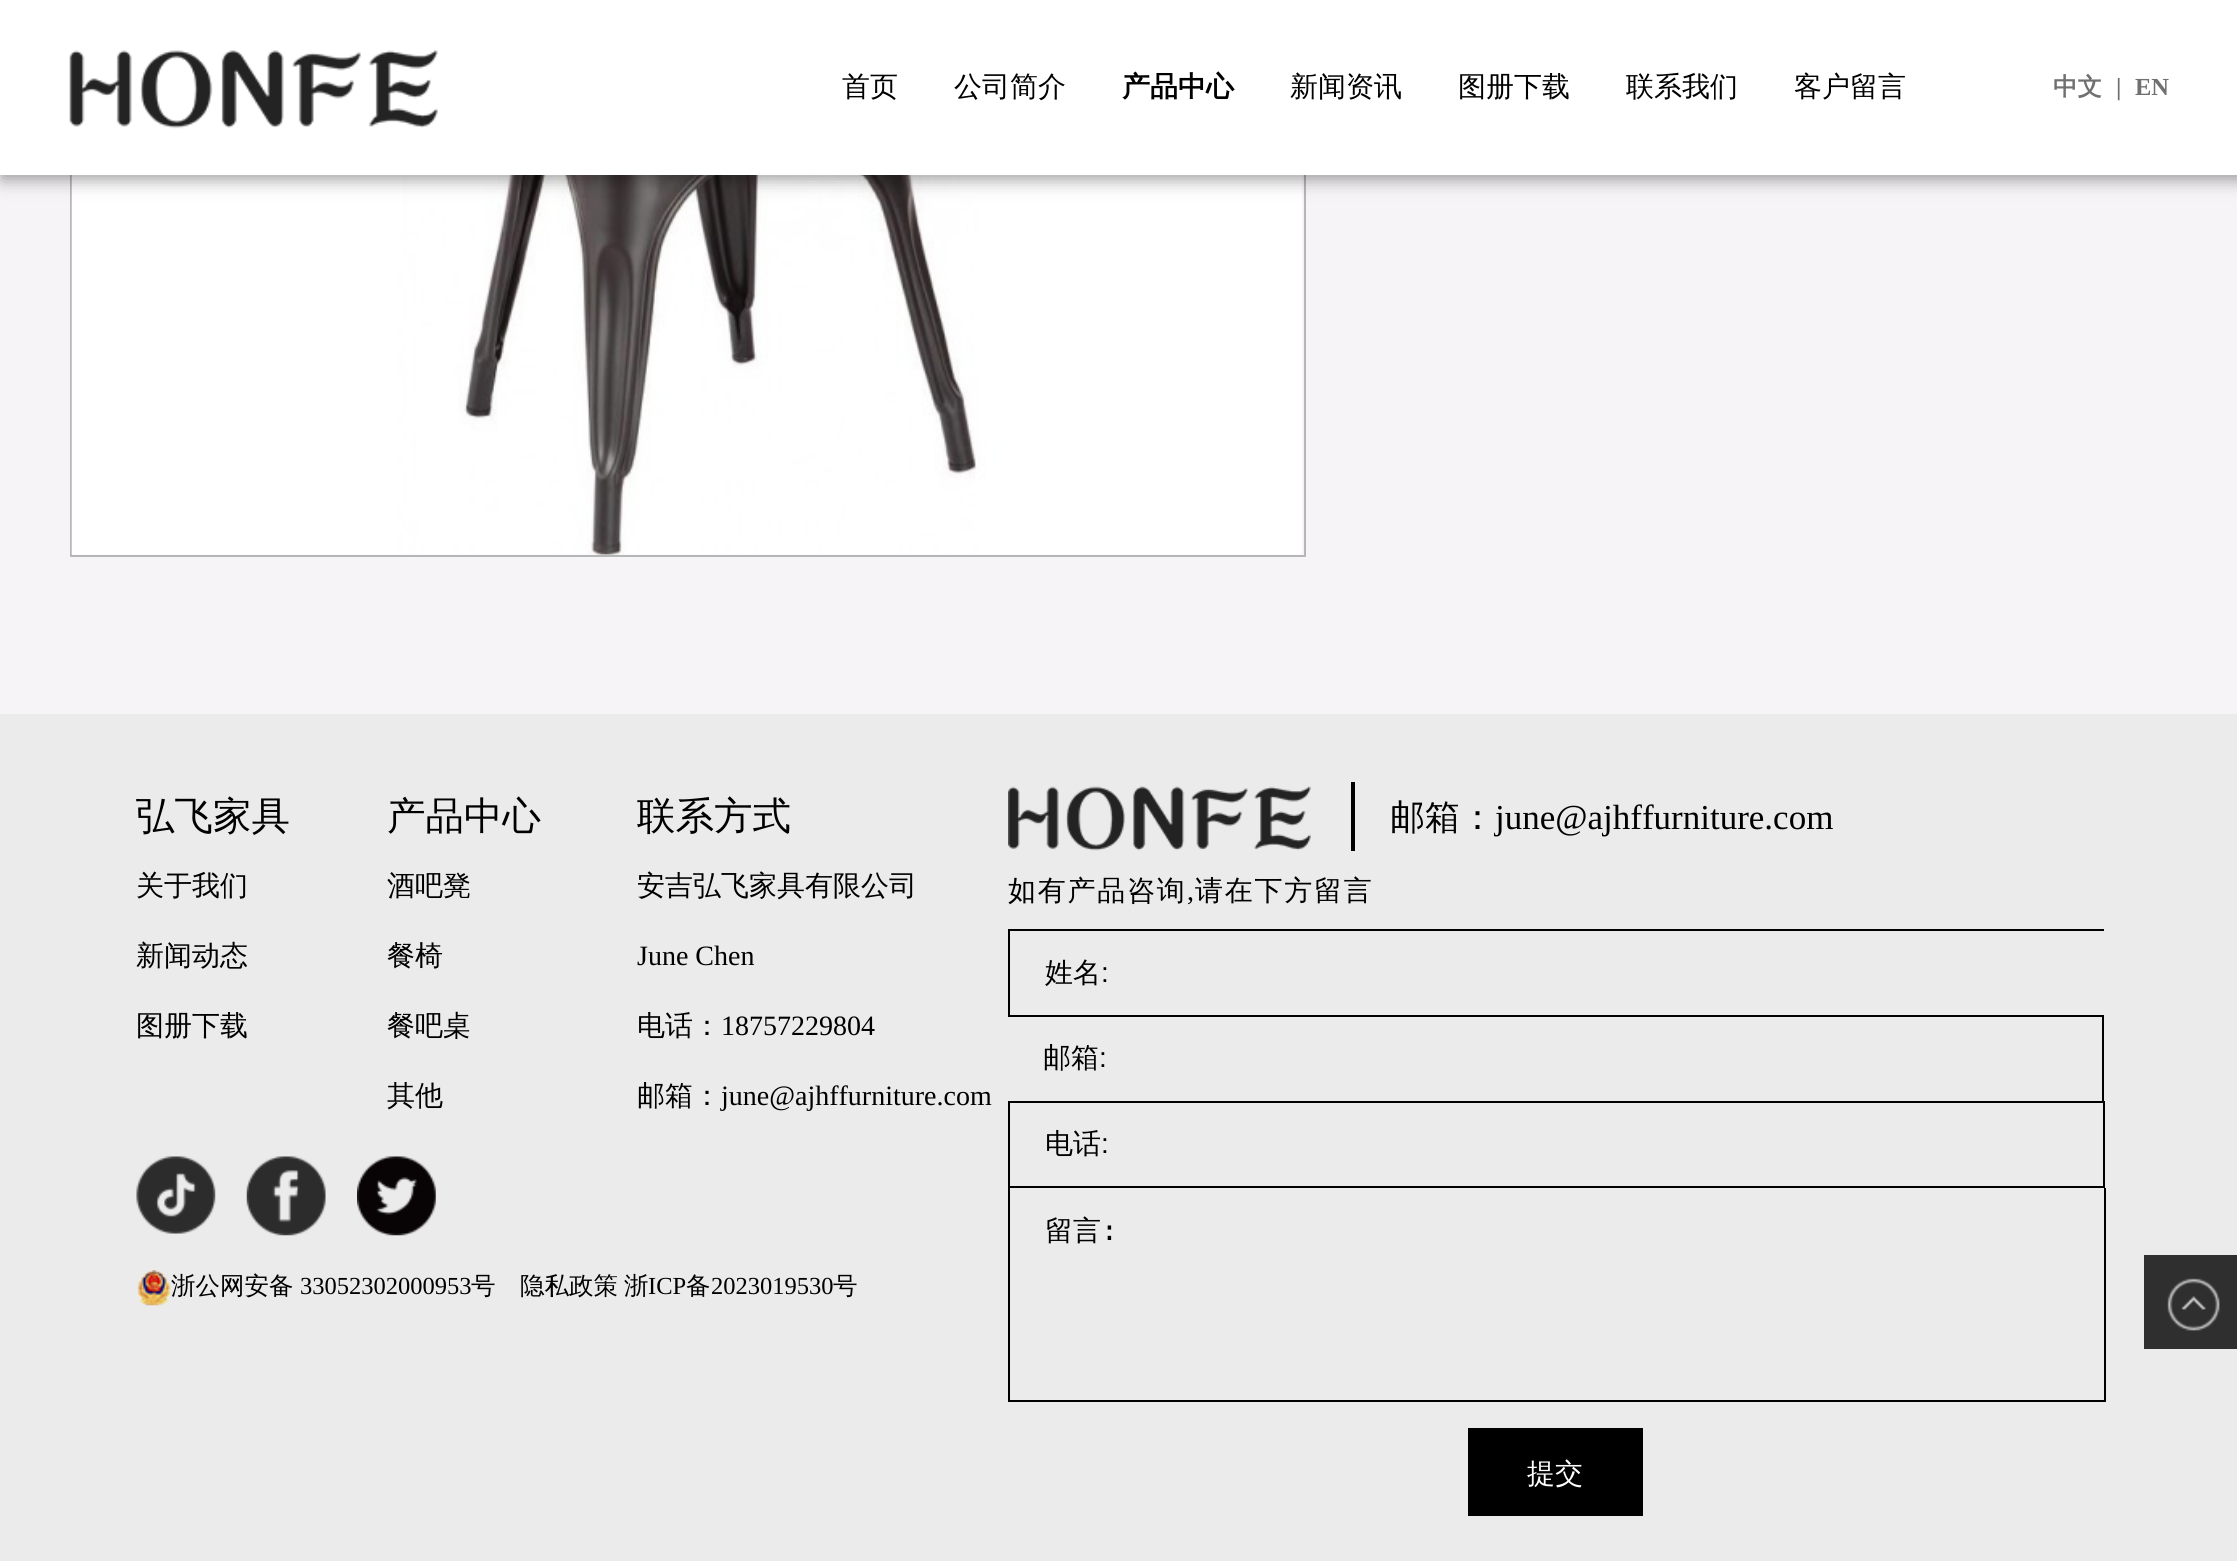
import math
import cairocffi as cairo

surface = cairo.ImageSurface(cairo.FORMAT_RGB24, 2237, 1561)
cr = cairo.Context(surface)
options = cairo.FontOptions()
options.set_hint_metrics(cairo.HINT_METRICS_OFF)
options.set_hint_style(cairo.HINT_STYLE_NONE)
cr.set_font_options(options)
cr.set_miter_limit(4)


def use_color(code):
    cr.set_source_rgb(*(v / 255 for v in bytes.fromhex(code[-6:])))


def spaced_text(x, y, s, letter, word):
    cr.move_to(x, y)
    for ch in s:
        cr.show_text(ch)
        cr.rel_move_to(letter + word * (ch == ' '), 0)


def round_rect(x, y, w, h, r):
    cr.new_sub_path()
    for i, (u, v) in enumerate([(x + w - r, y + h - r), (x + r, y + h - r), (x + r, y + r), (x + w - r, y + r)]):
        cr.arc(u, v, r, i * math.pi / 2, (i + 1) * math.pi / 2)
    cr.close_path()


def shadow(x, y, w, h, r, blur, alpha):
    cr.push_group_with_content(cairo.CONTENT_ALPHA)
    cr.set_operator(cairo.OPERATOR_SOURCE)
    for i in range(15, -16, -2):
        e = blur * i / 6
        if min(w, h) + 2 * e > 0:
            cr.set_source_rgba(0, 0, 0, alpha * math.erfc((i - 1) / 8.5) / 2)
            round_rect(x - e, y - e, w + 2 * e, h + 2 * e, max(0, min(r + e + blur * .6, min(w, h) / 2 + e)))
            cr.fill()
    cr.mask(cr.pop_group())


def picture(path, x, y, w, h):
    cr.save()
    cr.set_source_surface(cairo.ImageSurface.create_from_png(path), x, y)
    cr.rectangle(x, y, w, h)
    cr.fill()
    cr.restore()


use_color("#f7f4f8")
cr.paint()
cr.rectangle(71, -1, 1234, 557)
use_color("#b5b6b6")
cr.stroke()
picture("img1.png", 71, 175, 1231, 380)
use_color("#000000")
shadow(2, 4, 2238, 175, 0, 9, 0.4)
use_color("#ffffff")
cr.rectangle(0, 0, 2237, 175)
cr.fill()
picture("img2.png", 69, 50, 369, 79)
cr.select_font_face("WenQuanYi Zen Hei Medium")
cr.set_font_size(28)
use_color("#000000")
cr.move_to(842, 96)
cr.show_text("首页")
cr.move_to(954, 96)
cr.show_text("公司简介")
cr.select_font_face("WenQuanYi Zen Hei", cairo.FONT_SLANT_NORMAL, cairo.FONT_WEIGHT_BOLD)
cr.move_to(1122, 96)
cr.show_text("产品中心")
cr.select_font_face("WenQuanYi Zen Hei Medium")
cr.move_to(1290, 96)
cr.show_text("新闻资讯")
cr.move_to(1458, 96)
cr.show_text("图册下载")
cr.move_to(1626, 96)
cr.show_text("联系我们")
cr.move_to(1794, 96)
cr.show_text("客户留言")
cr.select_font_face("WenQuanYi Zen Hei", cairo.FONT_SLANT_NORMAL, cairo.FONT_WEIGHT_BOLD)
cr.set_font_size(24.5)
use_color("#707070")
cr.move_to(2053, 95)
cr.show_text("中文")
cr.select_font_face("Liberation Serif", cairo.FONT_SLANT_NORMAL, cairo.FONT_WEIGHT_BOLD)
cr.move_to(2116, 95)
cr.show_text("|")
cr.move_to(2135, 95)
cr.show_text("EN")
use_color("#ebebeb")
cr.rectangle(0, 714, 2237, 847)
cr.fill()
cr.select_font_face("WenQuanYi Zen Hei Medium")
cr.set_font_size(38.5)
use_color("#000000")
cr.move_to(136, 829)
cr.show_text("弘飞家具")
cr.set_font_size(28)
cr.move_to(136, 895)
cr.show_text("关于我们")
cr.move_to(136, 965)
cr.show_text("新闻动态")
cr.move_to(136, 1035)
cr.show_text("图册下载")
cr.set_font_size(38.5)
cr.move_to(387, 829)
cr.show_text("产品中心")
cr.set_font_size(28)
cr.move_to(387, 895)
cr.show_text("酒吧凳")
cr.move_to(387, 965)
cr.show_text("餐椅")
cr.move_to(387, 1035)
cr.show_text("餐吧桌")
cr.move_to(387, 1105)
cr.show_text("其他")
cr.set_font_size(38.5)
cr.move_to(637, 829)
cr.show_text("联系方式")
cr.set_font_size(28)
cr.move_to(637, 895)
cr.show_text("安吉弘飞家具有限公司")
cr.select_font_face("Liberation Serif")
cr.move_to(637, 965)
cr.show_text("June Chen")
cr.select_font_face("WenQuanYi Zen Hei Medium")
cr.move_to(637, 1035)
cr.show_text("电话：")
cr.select_font_face("Liberation Serif")
cr.move_to(721, 1035)
cr.show_text("18757229804")
cr.select_font_face("WenQuanYi Zen Hei Medium")
cr.move_to(637, 1105)
cr.show_text("邮箱：")
cr.select_font_face("Liberation Serif")
cr.move_to(721, 1105)
cr.show_text("june@ajhffurniture.com")
picture("img3.png", 136, 1156, 80, 78)
picture("img4.png", 246, 1156, 80, 80)
picture("img5.png", 357, 1156, 79, 80)
picture("img6.png", 137, 1270, 34, 36)
cr.select_font_face("WenQuanYi Zen Hei Medium")
cr.set_font_size(24.5)
cr.move_to(171, 1294)
cr.show_text("浙公网安备")
cr.select_font_face("Liberation Serif")
cr.move_to(300, 1294)
cr.show_text("33052302000953")
cr.select_font_face("WenQuanYi Zen Hei Medium")
cr.move_to(471, 1294)
cr.show_text("号")
cr.move_to(520, 1294)
cr.show_text("隐私政策")
cr.move_to(624, 1294)
cr.show_text("浙")
cr.select_font_face("Liberation Serif")
cr.move_to(648, 1294)
cr.show_text("ICP")
cr.select_font_face("WenQuanYi Zen Hei Medium")
cr.move_to(686, 1294)
cr.show_text("备")
cr.select_font_face("Liberation Serif")
cr.move_to(711, 1294)
cr.show_text("2023019530")
cr.select_font_face("WenQuanYi Zen Hei Medium")
cr.move_to(833, 1294)
cr.show_text("号")
picture("img7.png", 1008, 786, 303, 65)
cr.rectangle(1351, 782, 4, 69)
cr.fill()
cr.set_font_size(35)
cr.move_to(1390, 829)
cr.show_text("邮箱：")
cr.select_font_face("Liberation Serif")
cr.move_to(1495, 829)
cr.show_text("june@ajhffurniture.com")
cr.select_font_face("WenQuanYi Zen Hei Medium")
cr.set_font_size(28)
spaced_text(1008, 900, "如有产品咨询", 1.75, 0)
cr.select_font_face("Liberation Serif")
spaced_text(1187, 900, ",", 1.75, 0)
cr.select_font_face("WenQuanYi Zen Hei Medium")
spaced_text(1195, 900, "请在下方留言", 1.75, 0)
cr.rectangle(1008, 929, 1096, 2)
cr.fill()
cr.rectangle(1008, 929, 2, 86)
cr.fill()
cr.move_to(1045, 982)
cr.show_text("姓名")
cr.select_font_face("Liberation Sans")
cr.move_to(1101, 982)
cr.show_text(":")
cr.rectangle(1008, 1015, 1096, 2)
cr.fill()
cr.rectangle(2102, 1015, 2, 86)
cr.fill()
cr.select_font_face("WenQuanYi Zen Hei Medium")
cr.move_to(1043, 1067)
cr.show_text("邮箱")
cr.select_font_face("Liberation Sans")
cr.move_to(1099, 1067)
cr.show_text(":")
cr.rectangle(1009, 1102, 1095, 85)
cr.stroke()
cr.select_font_face("WenQuanYi Zen Hei Medium")
cr.move_to(1045, 1153)
cr.show_text("电话")
cr.select_font_face("Liberation Sans")
cr.move_to(1101, 1153)
cr.show_text(":")
cr.rectangle(2104, 1188, 2, 214)
cr.fill()
cr.rectangle(1008, 1400, 1097, 2)
cr.fill()
cr.rectangle(1008, 1188, 2, 214)
cr.fill()
cr.select_font_face("WenQuanYi Zen Hei Medium")
cr.move_to(1045, 1240)
cr.show_text("留言")
cr.select_font_face("DejaVu Sans Mono")
cr.move_to(1101, 1240)
cr.show_text(":")
cr.rectangle(1468, 1428, 175, 88)
cr.fill()
cr.select_font_face("WenQuanYi Zen Hei Medium")
use_color("#ffffff")
cr.move_to(1527, 1483)
cr.show_text("提交")
use_color("#2f2f2f")
cr.rectangle(2144, 1255, 93, 94)
cr.fill()
picture("img8.png", 2167, 1278, 53, 53)
surface.write_to_png("result.png")
